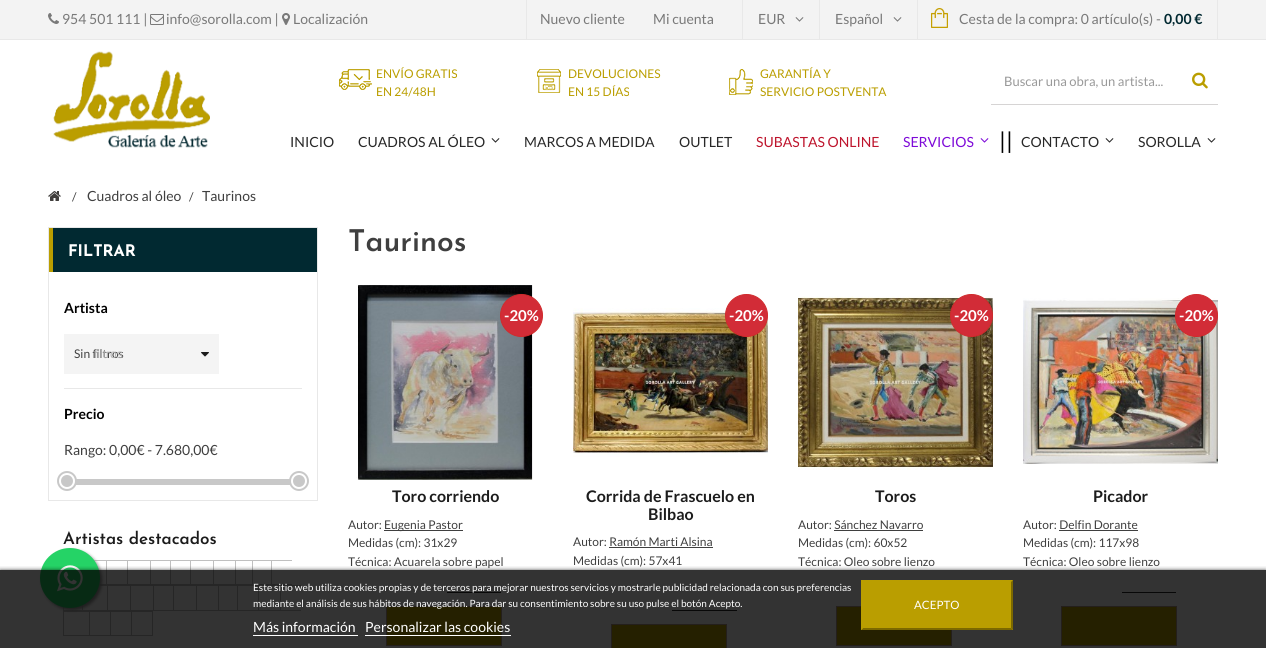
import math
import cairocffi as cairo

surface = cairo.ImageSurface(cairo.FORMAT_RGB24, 1266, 648)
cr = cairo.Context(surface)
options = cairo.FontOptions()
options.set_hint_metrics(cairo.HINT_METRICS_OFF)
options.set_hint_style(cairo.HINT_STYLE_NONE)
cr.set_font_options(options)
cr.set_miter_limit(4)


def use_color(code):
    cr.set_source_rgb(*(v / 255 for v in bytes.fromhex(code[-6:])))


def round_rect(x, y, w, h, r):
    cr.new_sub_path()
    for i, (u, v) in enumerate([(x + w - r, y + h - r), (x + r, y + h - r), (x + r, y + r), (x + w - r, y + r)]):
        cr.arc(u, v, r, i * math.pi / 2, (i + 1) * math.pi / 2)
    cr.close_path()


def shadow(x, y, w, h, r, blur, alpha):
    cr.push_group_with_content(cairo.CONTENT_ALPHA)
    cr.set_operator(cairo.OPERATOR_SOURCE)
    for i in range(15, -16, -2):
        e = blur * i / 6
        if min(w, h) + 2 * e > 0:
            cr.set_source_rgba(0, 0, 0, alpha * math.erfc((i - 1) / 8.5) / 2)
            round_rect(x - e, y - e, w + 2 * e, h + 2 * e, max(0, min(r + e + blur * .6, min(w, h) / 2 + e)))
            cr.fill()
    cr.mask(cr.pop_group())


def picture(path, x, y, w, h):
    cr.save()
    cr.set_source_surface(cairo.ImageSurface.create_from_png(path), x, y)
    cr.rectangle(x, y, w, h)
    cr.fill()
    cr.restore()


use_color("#ffffff")
cr.paint()
use_color("#f3f3f3")
cr.rectangle(0, 0, 1266, 39)
cr.fill()
use_color("#e8e8e8")
cr.rectangle(0, 39, 1266, 1)
cr.fill()
picture("img1.png", 48, 13, 11, 11)
cr.select_font_face("Lato")
cr.set_font_size(14)
use_color("#797979")
cr.move_to(62, 24)
cr.show_text("954 501 111 |")
picture("img2.png", 150, 14, 14, 11)
cr.move_to(166, 24)
cr.show_text("info@sorolla.com |")
picture("img3.png", 282, 13, 8, 12)
cr.move_to(293, 24)
cr.show_text("Localización")
use_color("#e8e8e8")
cr.rectangle(526, 0, 1, 39)
cr.fill()
use_color("#797979")
cr.move_to(540, 24)
cr.show_text("Nuevo cliente")
cr.move_to(653, 24)
cr.show_text("Mi cuenta")
use_color("#e8e8e8")
cr.rectangle(742, 0, 1, 39)
cr.fill()
use_color("#797979")
cr.move_to(758, 24)
cr.show_text("EUR")
picture("img4.png", 795, 17, 9, 5)
use_color("#e8e8e8")
cr.rectangle(917, 0, 1, 39)
cr.fill()
cr.rectangle(819, 0, 1, 39)
cr.fill()
use_color("#797979")
cr.move_to(835, 24)
cr.show_text("Español")
picture("img4.png", 893, 17, 9, 5)
use_color("#e8e8e8")
cr.rectangle(1217, 0, 1, 39)
cr.fill()
picture("img5.png", 931, 8, 17, 20)
use_color("#797979")
cr.move_to(959, 24)
cr.show_text("Cesta de la compra: 0 artículo(s) -")
cr.select_font_face("Lato", cairo.FONT_SLANT_NORMAL, cairo.FONT_WEIGHT_BOLD)
use_color("#012931")
cr.move_to(1164, 24)
cr.show_text("0,00 €")
picture("img6.png", 53, 51, 157, 97)
picture("img7.png", 339, 69, 33, 21)
cr.select_font_face("Lato")
cr.set_font_size(12)
use_color("#ba9e00")
cr.move_to(376, 78)
cr.show_text("ENVÍO GRATIS")
cr.move_to(376, 96)
cr.show_text("EN 24/48H")
picture("img8.png", 537, 69, 24, 24)
cr.move_to(568, 78)
cr.show_text("DEVOLUCIONES")
cr.move_to(568, 96)
cr.show_text("EN 15 DÍAS")
picture("img9.png", 729, 69, 24, 26)
cr.move_to(760, 78)
cr.show_text("GARANTÍA Y")
cr.move_to(760, 96)
cr.show_text("SERVICIO POSTVENTA")
use_color("#d6d4d4")
cr.rectangle(991, 104, 227, 1)
cr.fill()
cr.set_font_size(13)
use_color("#999999")
cr.move_to(1004, 86)
cr.show_text("Buscar una obra, un artista...")
picture("img10.png", 1192, 72, 16, 17)
cr.set_font_size(14)
use_color("#282828")
cr.move_to(290, 147)
cr.show_text("INICIO")
cr.move_to(358, 147)
cr.show_text("CUADROS AL ÓLEO")
picture("img11.png", 491, 138, 9, 5)
cr.move_to(524, 147)
cr.show_text("MARCOS A MEDIDA")
cr.move_to(679, 147)
cr.show_text("OUTLET")
use_color("#be152d")
cr.move_to(756, 147)
cr.show_text("SUBASTAS ONLINE")
use_color("#7e0ad8")
cr.move_to(903, 147)
cr.show_text("SERVICIOS")
picture("img12.png", 980, 138, 9, 5)
cr.set_font_size(23)
use_color("#000000")
cr.move_to(999, 149)
cr.show_text("||")
cr.set_font_size(14)
use_color("#282828")
cr.move_to(1021, 147)
cr.show_text("CONTACTO")
picture("img11.png", 1105, 138, 9, 5)
cr.move_to(1138, 147)
cr.show_text("SOROLLA")
picture("img11.png", 1207, 138, 9, 5)
picture("img13.png", 48, 191, 13, 10)
cr.set_font_size(12)
use_color("#3f3f3f")
cr.move_to(72, 201)
cr.show_text("/")
cr.set_font_size(14)
cr.move_to(87, 201)
cr.show_text("Cuadros al óleo")
cr.set_font_size(12)
cr.move_to(189, 201)
cr.show_text("/")
cr.set_font_size(14)
cr.move_to(202, 201)
cr.show_text("Taurinos")
cr.rectangle(48.5, 227.5, 269, 273)
use_color("#e8e8e8")
cr.set_line_width(1)
cr.stroke()
use_color("#012931")
cr.rectangle(53, 228, 264, 44)
cr.fill()
use_color("#ba9e00")
cr.rectangle(49, 228, 4, 44)
cr.fill()
cr.select_font_face("Josefin Sans", cairo.FONT_SLANT_NORMAL, cairo.FONT_WEIGHT_BOLD)
cr.set_font_size(16)
use_color("#ffffff")
cr.move_to(68, 256)
cr.show_text("FILTRAR")
use_color("#e8e8e8")
cr.rectangle(64, 388, 238, 1)
cr.fill()
cr.select_font_face("Lato", cairo.FONT_SLANT_NORMAL, cairo.FONT_WEIGHT_BOLD)
cr.set_font_size(14)
use_color("#000000")
cr.move_to(64, 313)
cr.show_text("Artista")
use_color("#f4f4f4")
cr.rectangle(64, 334, 155, 40)
cr.fill()
cr.select_font_face("Lato")
cr.set_font_size(12)
use_color("#3f3f3f")
cr.move_to(74, 358)
cr.show_text("Sin filtros")
picture("img14.png", 201, 352, 8, 5)
cr.select_font_face("Liberation Sans")
use_color("#b1b1b1")
cr.move_to(94, 358)
cr.show_text("filtros")
cr.select_font_face("Lato", cairo.FONT_SLANT_NORMAL, cairo.FONT_WEIGHT_BOLD)
cr.set_font_size(14)
use_color("#000000")
cr.move_to(64, 419)
cr.show_text("Precio")
cr.select_font_face("Lato")
use_color("#3f3f3f")
cr.move_to(64, 455)
cr.show_text("Rango: 0,00€ - 7.680,00€")
use_color("#c8c8c8")
cr.rectangle(76, 479, 214, 6)
cr.fill()
use_color("#ffffff")
cr.arc(67, 481, 9, 0, 2 * math.pi)
cr.fill_preserve()
use_color("#c8c8c8")
cr.set_line_width(2)
cr.stroke()
cr.arc(67, 481, 6, 0, 2 * math.pi)
cr.fill()
use_color("#ffffff")
cr.arc(299, 481, 9, 0, 2 * math.pi)
cr.fill_preserve()
use_color("#c8c8c8")
cr.stroke()
cr.arc(299, 481, 6, 0, 2 * math.pi)
cr.fill()
cr.select_font_face("Josefin Sans SemiBold")
cr.set_font_size(17)
use_color("#1c1c1c")
cr.move_to(63, 544)
cr.show_text("Artistas destacados")
use_color("#c0c0c0")
cr.rectangle(94, 560, 198, 1)
cr.fill()
cr.rectangle(99, 584, 193, 1)
cr.fill()
cr.rectangle(106, 560, 1, 25)
cr.fill()
cr.rectangle(127, 560, 1, 25)
cr.fill()
cr.rectangle(150, 560, 1, 25)
cr.fill()
cr.rectangle(170, 560, 1, 25)
cr.fill()
cr.rectangle(190, 560, 1, 25)
cr.fill()
cr.rectangle(213, 560, 1, 25)
cr.fill()
cr.rectangle(235, 560, 1, 25)
cr.fill()
cr.rectangle(252, 560, 1, 25)
cr.fill()
cr.rectangle(271, 560, 1, 25)
cr.fill()
cr.rectangle(98, 585, 203, 1)
cr.fill()
cr.rectangle(63, 610, 238, 1)
cr.fill()
cr.rectangle(82, 605, 1, 6)
cr.fill()
cr.rectangle(107, 585, 1, 26)
cr.fill()
cr.rectangle(130, 585, 1, 26)
cr.fill()
cr.rectangle(153, 585, 1, 26)
cr.fill()
cr.rectangle(173, 585, 1, 26)
cr.fill()
cr.rectangle(196, 585, 1, 26)
cr.fill()
cr.rectangle(218, 585, 1, 26)
cr.fill()
cr.rectangle(237, 585, 1, 26)
cr.fill()
cr.rectangle(258, 585, 1, 26)
cr.fill()
cr.rectangle(280, 585, 1, 26)
cr.fill()
cr.rectangle(63, 607, 1, 4)
cr.fill()
cr.rectangle(63, 611, 68, 1)
cr.fill()
cr.rectangle(63, 635, 68, 1)
cr.fill()
cr.rectangle(63, 611, 1, 25)
cr.fill()
cr.rectangle(89, 611, 1, 25)
cr.fill()
cr.rectangle(110, 611, 1, 25)
cr.fill()
cr.rectangle(131.5, 611.5, 21, 24)
cr.set_line_width(1)
cr.stroke()
cr.set_font_size(30)
use_color("#3f3f3f")
cr.move_to(348, 251)
cr.show_text("Taurinos")
picture("img15.png", 356, 285, 177, 195)
use_color("#d22c37")
cr.arc(521.5, 315.5, 21, 0, 2 * math.pi)
cr.fill_preserve()
use_color("#d02a2c")
cr.stroke()
cr.select_font_face("Lato", cairo.FONT_SLANT_NORMAL, cairo.FONT_WEIGHT_BOLD)
cr.set_font_size(15)
use_color("#ffffff")
cr.move_to(504, 321)
cr.show_text("-20%")
use_color("#282828")
cr.rectangle(447, 592, 54, 1)
cr.fill()
cr.set_font_size(16)
use_color("#1c1c1c")
cr.move_to(392, 502)
cr.show_text("Toro corriendo")
cr.select_font_face("Lato")
cr.set_font_size(12)
use_color("#3f3f3f")
cr.move_to(348, 529)
cr.show_text("Autor:")
cr.rectangle(384, 530, 79, 1)
cr.fill()
cr.move_to(384, 529)
cr.show_text("Eugenia Pastor")
cr.move_to(348, 547)
cr.show_text("Medidas (cm): 31x29")
cr.move_to(348, 566)
cr.show_text("Técnica: Acuarela sobre papel")
use_color("#ba9e00")
cr.rectangle(386.5, 606.5, 115, 39)
cr.fill_preserve()
use_color("#b59c8a")
cr.stroke()
picture("img16.png", 573, 308, 195, 149)
use_color("#d22c37")
cr.arc(746.5, 315.5, 21, 0, 2 * math.pi)
cr.fill_preserve()
use_color("#d02a2c")
cr.stroke()
cr.select_font_face("Lato", cairo.FONT_SLANT_NORMAL, cairo.FONT_WEIGHT_BOLD)
cr.set_font_size(15)
use_color("#ffffff")
cr.move_to(729, 321)
cr.show_text("-20%")
use_color("#282828")
cr.rectangle(672, 610, 65, 1)
cr.fill()
cr.set_font_size(16)
use_color("#1c1c1c")
cr.move_to(586, 502)
cr.show_text("Corrida de Frascuelo en")
cr.move_to(648, 520)
cr.show_text("Bilbao")
cr.select_font_face("Lato")
cr.set_font_size(12)
use_color("#3f3f3f")
cr.move_to(573, 546)
cr.show_text("Autor: Ramón Marti Alsina")
cr.rectangle(609, 547, 104, 1)
cr.fill()
cr.move_to(573, 565)
cr.show_text("Medidas (cm): 57x41")
use_color("#ba9e00")
cr.rectangle(611.5, 624.5, 115, 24)
cr.fill_preserve()
use_color("#b59c8a")
cr.stroke()
picture("img17.png", 798, 296, 195, 174)
use_color("#d22c37")
cr.arc(971.5, 315.5, 21, 0, 2 * math.pi)
cr.fill_preserve()
use_color("#d02a2c")
cr.stroke()
cr.select_font_face("Lato", cairo.FONT_SLANT_NORMAL, cairo.FONT_WEIGHT_BOLD)
cr.set_font_size(15)
use_color("#ffffff")
cr.move_to(954, 321)
cr.show_text("-20%")
cr.set_font_size(16)
use_color("#1c1c1c")
cr.move_to(875, 502)
cr.show_text("Toros")
cr.select_font_face("Lato")
cr.set_font_size(12)
use_color("#3f3f3f")
cr.move_to(798, 529)
cr.show_text("Autor: Sánchez Navarro")
cr.rectangle(834, 530, 89, 1)
cr.fill()
cr.move_to(798, 547)
cr.show_text("Medidas (cm): 60x52")
cr.move_to(798, 566)
cr.show_text("Técnica: Oleo sobre lienzo")
use_color("#ba9e00")
cr.rectangle(836.5, 606.5, 115, 39)
cr.fill_preserve()
use_color("#b59c8a")
cr.stroke()
picture("img18.png", 1023, 298, 195, 166)
use_color("#d22c37")
cr.arc(1196.5, 315.5, 21, 0, 2 * math.pi)
cr.fill_preserve()
use_color("#d02a2c")
cr.stroke()
cr.select_font_face("Lato", cairo.FONT_SLANT_NORMAL, cairo.FONT_WEIGHT_BOLD)
cr.set_font_size(15)
use_color("#ffffff")
cr.move_to(1179, 321)
cr.show_text("-20%")
use_color("#282828")
cr.rectangle(1122, 592, 54, 1)
cr.fill()
cr.set_font_size(16)
use_color("#1c1c1c")
cr.move_to(1093, 502)
cr.show_text("Picador")
cr.select_font_face("Lato")
cr.set_font_size(12)
use_color("#3f3f3f")
cr.move_to(1023, 529)
cr.show_text("Autor: Delfin Dorante")
cr.rectangle(1059, 530, 79, 1)
cr.fill()
cr.move_to(1023, 547)
cr.show_text("Medidas (cm): 117x98")
cr.move_to(1023, 566)
cr.show_text("Técnica: Oleo sobre lienzo")
use_color("#ba9e00")
cr.rectangle(1061.5, 606.5, 115, 39)
cr.fill_preserve()
use_color("#b59c8a")
cr.stroke()
use_color("#999999")
shadow(42, 550, 60, 60, 30, 1.5, 1)
use_color("#25d366")
cr.arc(70, 578, 30, 0, 2 * math.pi)
cr.fill()
picture("img19.png", 57, 565, 26, 27)
cr.save()
cr.rectangle(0, 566, 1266, 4)
cr.clip()
use_color("#000000")
shadow(0, 571, 1266, 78, 0, 2.5, 1)
cr.restore()
cr.set_source_rgba(0, 0, 0, 0.8)
cr.rectangle(0, 570, 1266, 78)
cr.fill()
cr.set_font_size(10)
use_color("#ffffff")
cr.move_to(253, 591)
cr.show_text("Este sitio web utiliza cookies propias y de terceros para mejorar nuestros servicios y mostrarle publicidad relacionada con sus preferencias")
cr.move_to(253, 607)
cr.show_text("mediante el análisis de sus hábitos de navegación. Para dar su consentimiento sobre su uso pulse el botón Acepto.")
cr.set_font_size(14)
cr.move_to(253, 632)
cr.show_text("Más información")
cr.rectangle(253, 635, 105, 1)
cr.fill()
cr.move_to(365, 632)
cr.show_text("Personalizar las cookies")
cr.rectangle(365, 635, 146, 1)
cr.fill()
use_color("#ba9e00")
cr.rectangle(861, 580, 152, 50)
cr.fill()
use_color("#7c6900")
cr.new_path()
cr.move_to(1013, 580)
cr.line_to(1013, 630)
cr.line_to(1011, 628)
cr.line_to(1011, 582)
cr.close_path()
cr.fill()
cr.new_path()
cr.move_to(1013, 630)
cr.line_to(861, 630)
cr.line_to(863, 628)
cr.line_to(1011, 628)
cr.close_path()
cr.fill()
use_color("#ba9e00")
cr.new_path()
cr.move_to(861, 630)
cr.line_to(861, 580)
cr.line_to(863, 582)
cr.line_to(863, 628)
cr.close_path()
cr.fill()
cr.set_font_size(11.5)
use_color("#ffffff")
cr.move_to(914, 609)
cr.show_text("ACEPTO")
surface.write_to_png("result.png")
